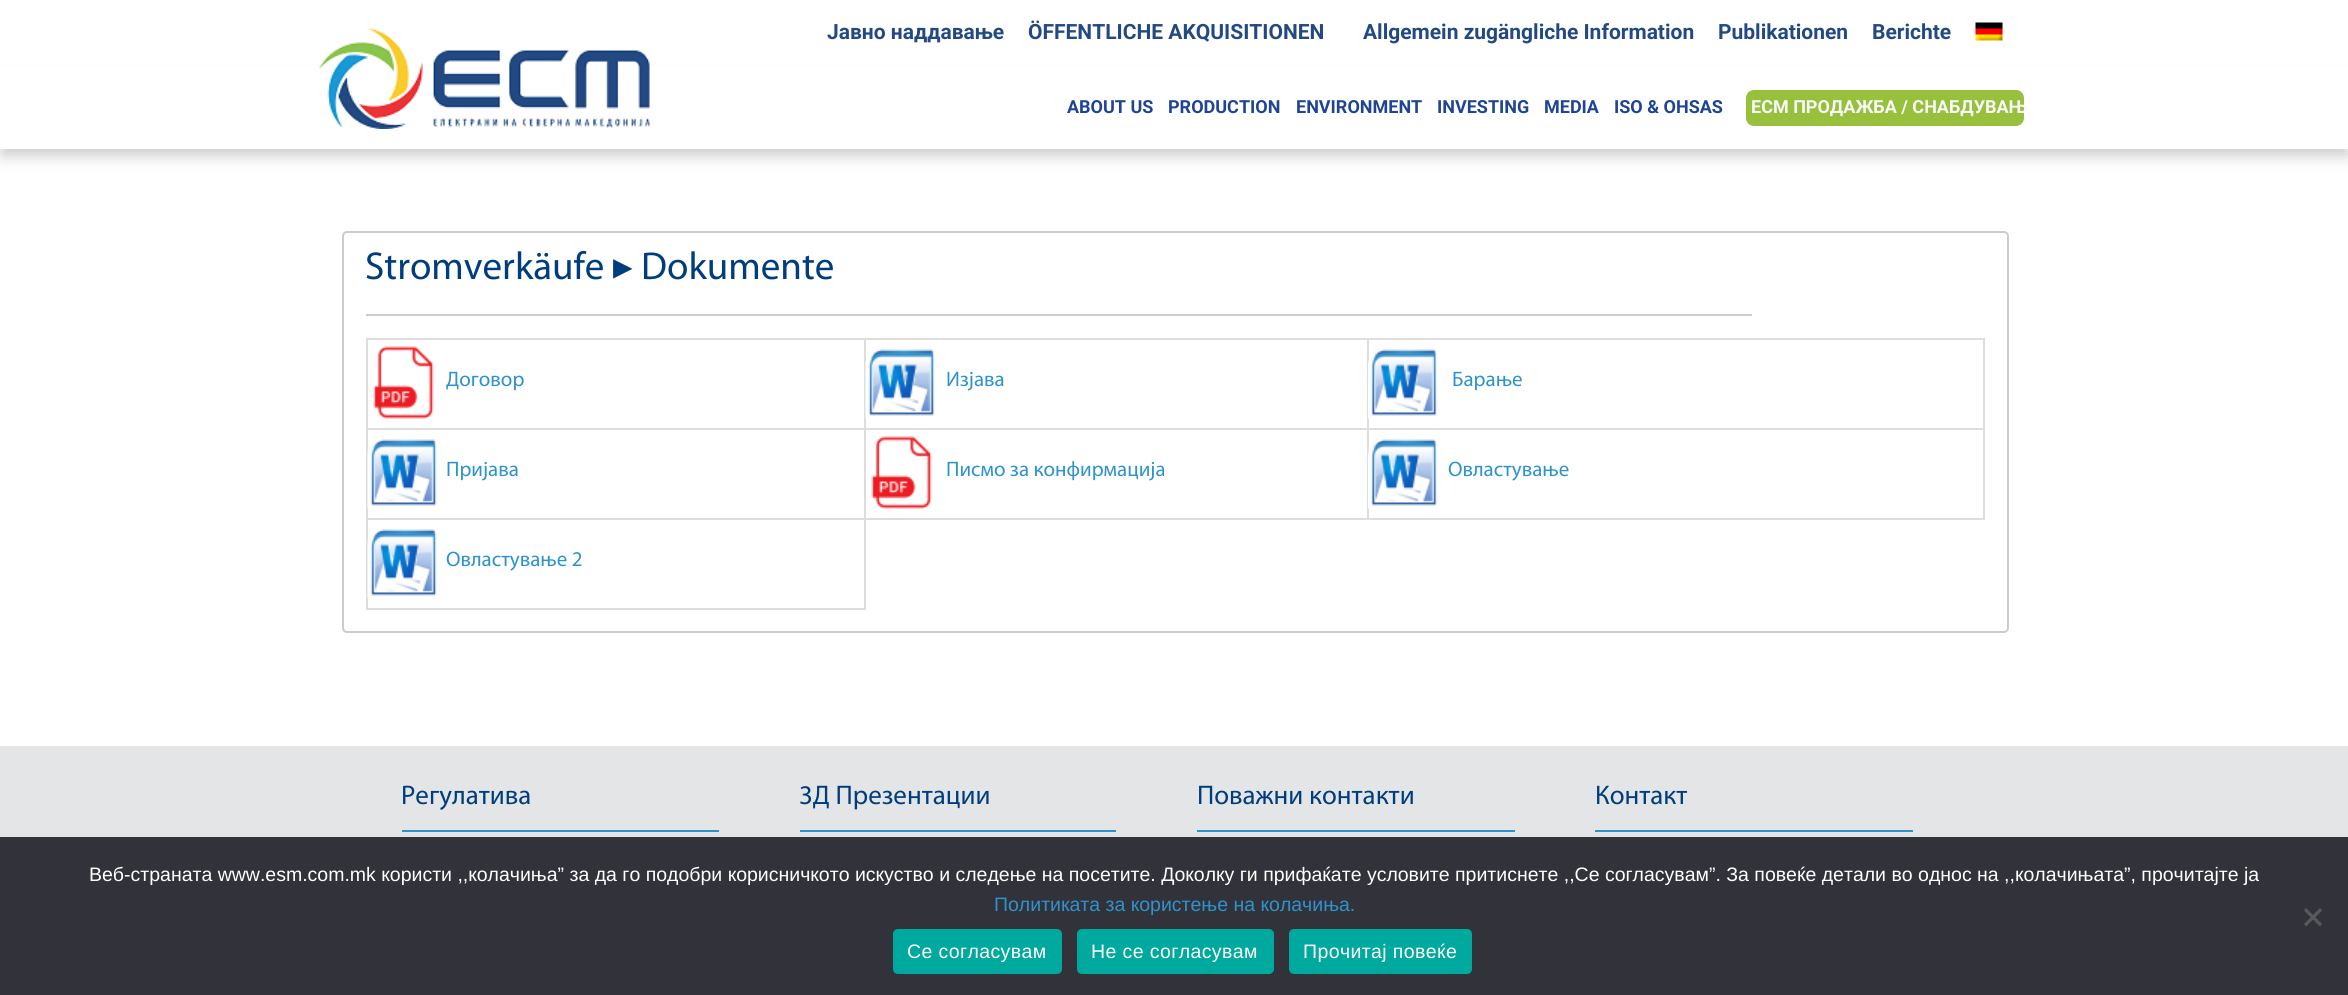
import math
import cairocffi as cairo

surface = cairo.ImageSurface(cairo.FORMAT_RGB24, 2348, 995)
cr = cairo.Context(surface)
options = cairo.FontOptions()
options.set_hint_metrics(cairo.HINT_METRICS_OFF)
options.set_hint_style(cairo.HINT_STYLE_NONE)
cr.set_font_options(options)
cr.set_miter_limit(4)


def use_color(code):
    cr.set_source_rgb(*(v / 255 for v in bytes.fromhex(code[-6:])))


def spaced_text(x, y, s, letter, word):
    cr.move_to(x, y)
    for ch in s:
        cr.show_text(ch)
        cr.rel_move_to(letter + word * (ch == ' '), 0)


def round_rect(x, y, w, h, r):
    cr.new_sub_path()
    for i, (u, v) in enumerate([(x + w - r, y + h - r), (x + r, y + h - r), (x + r, y + r), (x + w - r, y + r)]):
        cr.arc(u, v, r, i * math.pi / 2, (i + 1) * math.pi / 2)
    cr.close_path()


def shadow(x, y, w, h, r, blur, alpha):
    cr.push_group_with_content(cairo.CONTENT_ALPHA)
    cr.set_operator(cairo.OPERATOR_SOURCE)
    for i in range(15, -16, -2):
        e = blur * i / 6
        if min(w, h) + 2 * e > 0:
            cr.set_source_rgba(0, 0, 0, alpha * math.erfc((i - 1) / 8.5) / 2)
            round_rect(x - e, y - e, w + 2 * e, h + 2 * e, max(0, min(r + e + blur * .6, min(w, h) / 2 + e)))
            cr.fill()
    cr.mask(cr.pop_group())


def picture(path, x, y, w, h):
    cr.save()
    cr.set_source_surface(cairo.ImageSurface.create_from_png(path), x, y)
    cr.rectangle(x, y, w, h)
    cr.fill()
    cr.restore()


use_color("#ffffff")
cr.paint()
cr.select_font_face("Roboto", cairo.FONT_SLANT_NORMAL, cairo.FONT_WEIGHT_BOLD)
cr.set_font_size(21)
use_color("#234983")
cr.move_to(827, 39)
cr.show_text("Јавно наддавање")
cr.move_to(1028, 39)
cr.show_text("ÖFFENTLICHE AKQUISITIONEN")
cr.move_to(1363, 39)
cr.show_text("Allgemein zugängliche Information")
cr.move_to(1718, 39)
cr.show_text("Publikationen")
cr.move_to(1872, 39)
cr.show_text("Berichte")
picture("img1.png", 1975, 22, 28, 19)
use_color("#000000")
shadow(2, 77, 2346, 79, 0, 7.5, 0.2)
use_color("#ffffff")
cr.rectangle(0, 66, 2348, 83)
cr.fill()
picture("img2.png", 319, 28, 331, 101)
cr.set_font_size(18)
use_color("#1f4494")
cr.move_to(1067, 113)
cr.show_text("ABOUT US")
cr.move_to(1168, 113)
cr.show_text("PRODUCTION")
cr.move_to(1296, 113)
cr.show_text("ENVIRONMENT")
cr.move_to(1437, 113)
cr.show_text("INVESTING")
cr.move_to(1544, 113)
cr.show_text("MEDIA")
cr.move_to(1614, 113)
cr.show_text("ISO & OHSAS")
use_color("#97c13c")
round_rect(1746, 90, 278, 36, 8)
cr.fill()
use_color("#f9f9f9")
cr.move_to(1751, 113)
cr.show_text("ЕСМ ПРОДАЖБА / СНАБДУВАЊ")
round_rect(343, 232, 1665, 400, 4)
use_color("#cccccc")
cr.stroke()
cr.select_font_face("Myriad")
cr.set_font_size(39)
use_color("#003d7e")
cr.move_to(365, 279)
cr.show_text("Stromverkäufe")
cr.select_font_face("DejaVu Sans")
cr.move_to(613, 279)
cr.show_text("▸")
cr.select_font_face("Myriad")
cr.move_to(641, 279)
cr.show_text("Dokumente")
use_color("#cccccc")
cr.rectangle(366, 314, 1386, 2)
cr.fill()
use_color("#dddddd")
cr.rectangle(1367, 338, 618, 2)
cr.fill()
cr.rectangle(1367, 428, 618, 2)
cr.fill()
cr.rectangle(1983, 428, 2, 91)
cr.fill()
cr.rectangle(1367, 518, 618, 2)
cr.fill()
cr.rectangle(1367, 428, 2, 91)
cr.fill()
cr.rectangle(864, 428, 504, 2)
cr.fill()
cr.rectangle(1367, 338, 2, 91)
cr.fill()
cr.rectangle(864, 338, 504, 2)
cr.fill()
cr.rectangle(366, 518, 500, 2)
cr.fill()
cr.rectangle(864, 518, 2, 91)
cr.fill()
cr.rectangle(864, 518, 504, 2)
cr.fill()
cr.rectangle(864, 428, 2, 91)
cr.fill()
cr.rectangle(366, 428, 500, 2)
cr.fill()
cr.rectangle(864, 338, 2, 91)
cr.fill()
cr.rectangle(366, 338, 500, 2)
cr.fill()
cr.rectangle(366, 608, 500, 2)
cr.fill()
cr.rectangle(366, 518, 2, 91)
cr.fill()
cr.rectangle(366, 428, 2, 91)
cr.fill()
cr.rectangle(366, 338, 2, 91)
cr.fill()
picture("img3.png", 373, 346, 61, 73)
cr.set_font_size(21)
use_color("#2e93cd")
cr.move_to(446, 386)
cr.show_text("Договор")
picture("img4.png", 865, 349, 70, 70)
cr.move_to(946, 386)
cr.show_text("Изјава")
use_color("#dddddd")
cr.rectangle(1983, 338, 2, 91)
cr.fill()
picture("img5.png", 1368, 349, 70, 70)
use_color("#2e93cd")
cr.move_to(1452, 386)
cr.show_text("Барање")
picture("img6.png", 367, 439, 70, 70)
cr.move_to(446, 476)
cr.show_text("Пријава")
picture("img7.png", 871, 436, 61, 73)
cr.move_to(946, 476)
cr.show_text("Писмо за конфирмација")
picture("img5.png", 1368, 439, 70, 70)
cr.move_to(1448, 476)
cr.show_text("Овластување")
picture("img6.png", 367, 529, 70, 70)
cr.move_to(446, 566)
cr.show_text("Овластување 2")
use_color("#e4e5e6")
cr.rectangle(0, 746, 2348, 91)
cr.fill()
cr.set_font_size(27)
use_color("#003d7e")
cr.move_to(401, 804)
cr.show_text("Регулатива")
use_color("#2e93cd")
cr.rectangle(402, 830, 317, 2)
cr.fill()
use_color("#003d7e")
cr.move_to(799, 804)
cr.show_text("3Д Презентации")
use_color("#2e93cd")
cr.rectangle(800, 830, 316, 2)
cr.fill()
use_color("#003d7e")
cr.move_to(1197, 804)
cr.show_text("Поважни контакти")
use_color("#2e93cd")
cr.rectangle(1197, 830, 318, 2)
cr.fill()
use_color("#003d7e")
cr.move_to(1595, 804)
cr.show_text("Контакт")
use_color("#2e93cd")
cr.rectangle(1595, 830, 318, 2)
cr.fill()
use_color("#32323a")
cr.rectangle(0, 837, 2348, 158)
cr.fill()
cr.select_font_face("Liberation Sans")
cr.set_font_size(19.5)
use_color("#ffffff")
cr.move_to(89, 881)
cr.show_text("Веб-страната www.esm.com.mk користи ,,колачиња” за да го подобри корисничкото искуство и следење на посетите. Доколку ги прифаќате условите притиснете ,,Се согласувам”. За повеќе детали во однос на ,,колачињата”, прочитајте ја")
use_color("#2e93cd")
cr.move_to(994, 911)
cr.show_text("Политиката за користење на колачиња.")
use_color("#59595d")
cr.new_path()
cr.move_to(2320, 908)
cr.line_to(2322, 910.5)
cr.line_to(2306, 926.5)
cr.line_to(2304, 924)
cr.close_path()
cr.fill()
cr.new_path()
cr.move_to(2304, 910.5)
cr.line_to(2306, 908)
cr.line_to(2322, 924)
cr.line_to(2320, 926.5)
cr.close_path()
cr.fill()
use_color("#00a99d")
round_rect(893, 929, 169, 45, 5)
cr.fill()
use_color("#ffffff")
spaced_text(907, 958, "Се согласувам", 0.4, 0)
use_color("#00a99d")
round_rect(1077, 929, 197, 45, 5)
cr.fill()
use_color("#ffffff")
spaced_text(1091, 958, "Не се согласувам", 0.4, 0)
use_color("#00a99d")
round_rect(1289, 929, 183, 45, 5)
cr.fill()
use_color("#ffffff")
spaced_text(1303, 958, "Прочитај повеќе", 0.4, 0)
surface.write_to_png("result.png")
